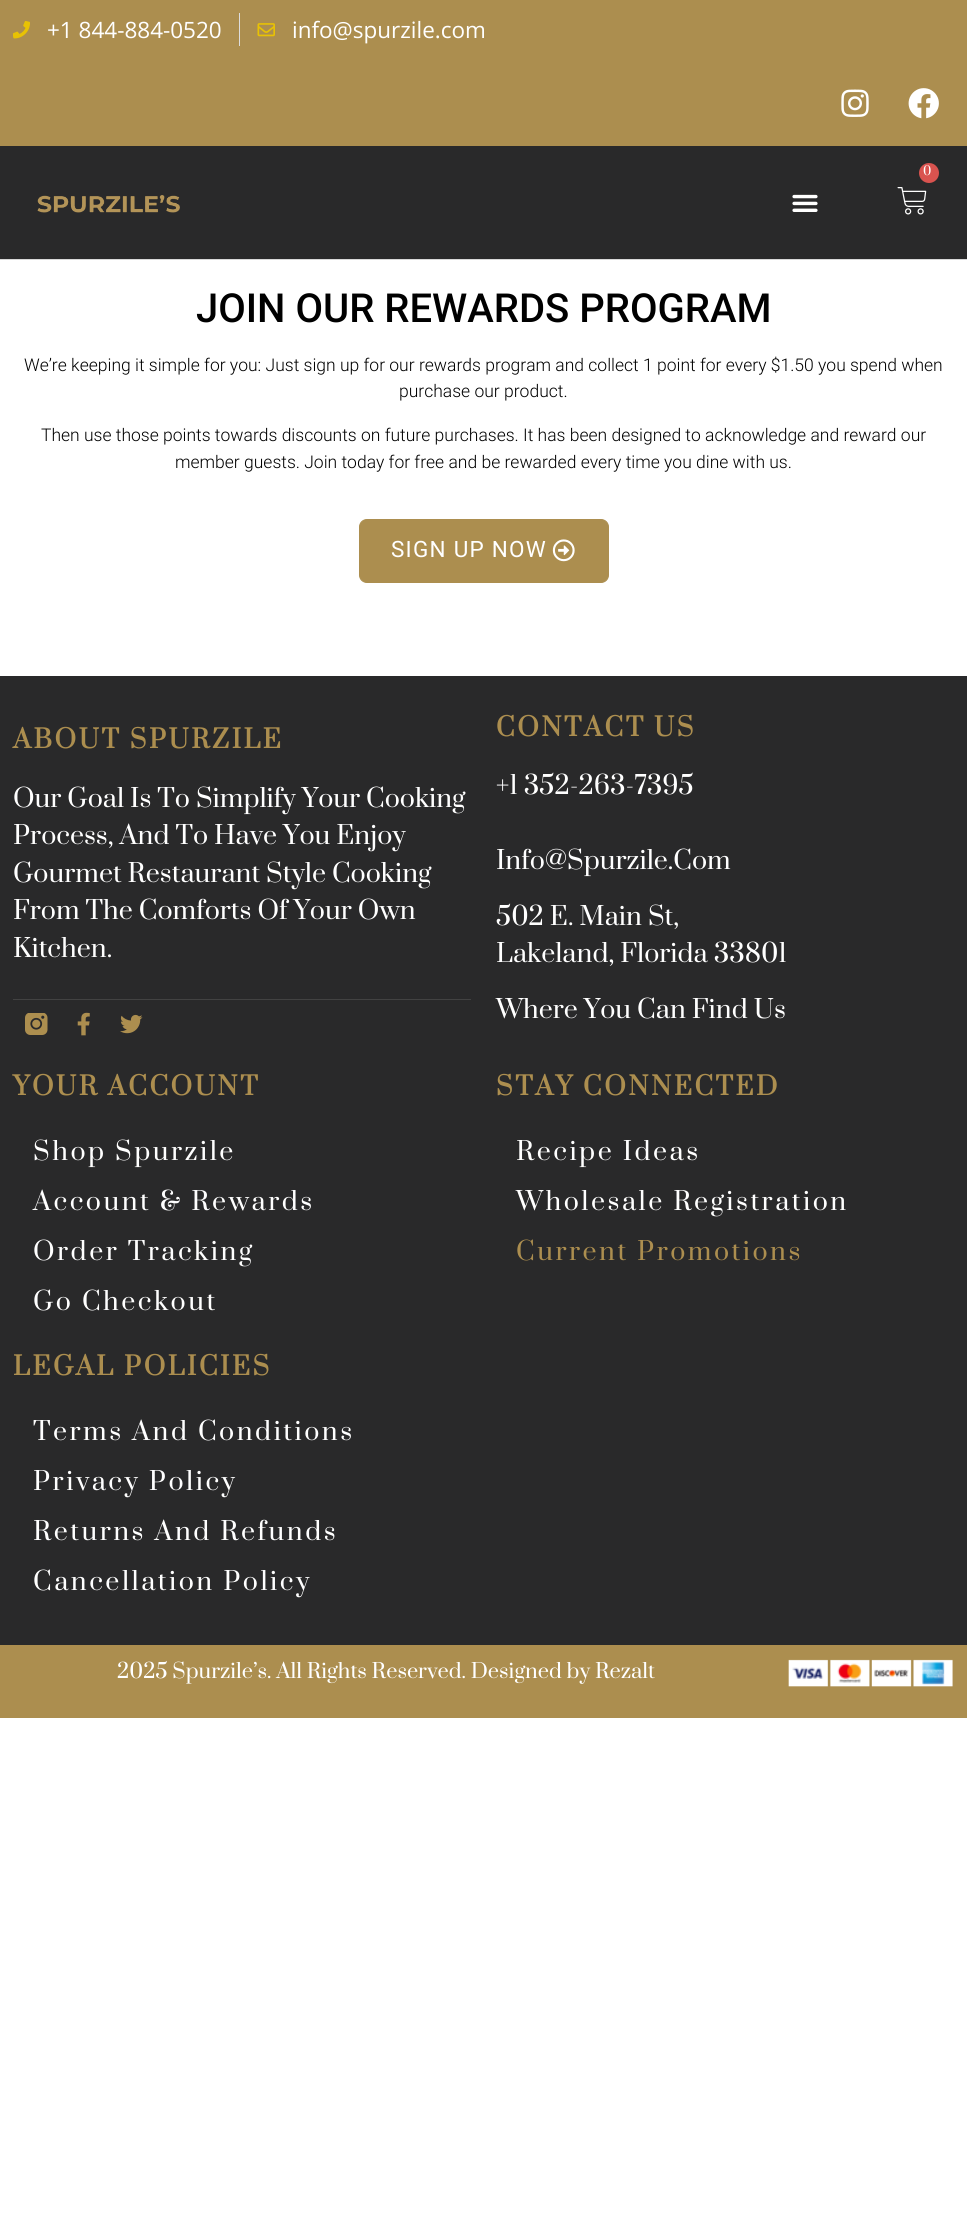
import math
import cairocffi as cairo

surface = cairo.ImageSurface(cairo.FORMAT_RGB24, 967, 2219)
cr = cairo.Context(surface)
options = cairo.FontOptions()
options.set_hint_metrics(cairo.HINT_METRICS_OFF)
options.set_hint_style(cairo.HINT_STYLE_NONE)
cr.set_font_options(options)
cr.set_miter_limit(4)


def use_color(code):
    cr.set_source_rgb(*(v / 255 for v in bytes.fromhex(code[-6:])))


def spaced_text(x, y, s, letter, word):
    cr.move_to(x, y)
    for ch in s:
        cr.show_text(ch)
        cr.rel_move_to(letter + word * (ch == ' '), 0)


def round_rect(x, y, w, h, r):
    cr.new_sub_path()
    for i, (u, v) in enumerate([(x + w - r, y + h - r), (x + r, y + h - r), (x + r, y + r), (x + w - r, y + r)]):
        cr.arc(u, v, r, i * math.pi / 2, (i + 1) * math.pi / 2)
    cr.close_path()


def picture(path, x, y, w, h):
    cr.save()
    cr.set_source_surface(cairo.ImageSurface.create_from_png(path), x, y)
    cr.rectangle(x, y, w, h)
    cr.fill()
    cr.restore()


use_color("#ffffff")
cr.paint()
use_color("#ac8e4f")
cr.rectangle(0, 0, 967, 146)
cr.fill()
picture("img1.png", 13, 21, 17, 18)
cr.select_font_face("Open Sans")
cr.set_font_size(22.5)
use_color("#ffffff")
cr.move_to(47, 38)
cr.show_text("+1 844-884-0520")
use_color("#dddddd")
cr.rectangle(239, 13, 1, 33)
cr.fill()
picture("img2.png", 257, 23, 18, 14)
use_color("#ffffff")
cr.move_to(292, 38)
cr.show_text("info@spurzile.com")
picture("img3.png", 841, 89, 28, 28)
picture("img4.png", 908, 88, 31, 31)
use_color("#29292a")
cr.rectangle(0, 146, 967, 113)
cr.fill()
use_color("#d8d8d8")
cr.rectangle(0, 259, 967, 1)
cr.fill()
use_color("#d9534f")
cr.arc(929, 173, 10, 0, 2 * math.pi)
cr.fill()
cr.select_font_face("Prata")
cr.set_font_size(12)
use_color("#ffffff")
spaced_text(923, 175, "0", 2.5, 0)
picture("img5.png", 897, 187, 30, 28)
picture("img6.png", 792, 194, 26, 18)
picture("img7.png", 37, 195, 143, 18)
cr.select_font_face("Roboto Medium")
cr.set_font_size(40)
use_color("#000000")
cr.move_to(196, 322)
cr.show_text("JOIN OUR REWARDS PROGRAM")
cr.select_font_face("Roboto Light")
cr.set_font_size(17.5)
cr.move_to(24, 371)
cr.show_text("We’re keeping it simple for you: Just sign up for our rewards program and collect 1 point for every $1.50 you spend when")
cr.move_to(399, 397)
cr.show_text("purchase our product.")
cr.move_to(41, 441)
cr.show_text("Then use those points towards discounts on future purchases. It has been designed to acknowledge and reward our")
cr.move_to(175, 468)
cr.show_text("member guests. Join today for free and be rewarded every time you dine with us.")
use_color("#ac8e4f")
round_rect(359.5, 519.5, 249, 63, 7.5)
cr.fill_preserve()
cr.set_line_width(1)
cr.stroke()
cr.select_font_face("Roboto")
cr.set_font_size(22.5)
use_color("#ffffff")
spaced_text(391, 557, "SIGN UP NOW", 1.25, 0)
picture("img8.png", 552, 539, 23, 23)
use_color("#29292a")
cr.rectangle(0, 676, 967, 969)
cr.fill()
cr.select_font_face("Prata", cairo.FONT_SLANT_NORMAL, cairo.FONT_WEIGHT_BOLD)
cr.set_font_size(25)
use_color("#ac8e4f")
spaced_text(13, 748, "ABOUT SPURZILE", 2.5, 0)
cr.select_font_face("Prata")
use_color("#ffffff")
cr.move_to(13, 807)
cr.show_text("Our Goal Is To Simplify Your Cooking")
cr.move_to(13, 844)
cr.show_text("Process, And To Have You Enjoy")
cr.move_to(13, 882)
cr.show_text("Gourmet Restaurant Style Cooking")
cr.move_to(13, 919)
cr.show_text("From The Comforts Of Your Own")
cr.move_to(13, 957)
cr.show_text("Kitchen.")
use_color("#424242")
cr.rectangle(13, 999, 458, 1)
cr.fill()
picture("img9.png", 25, 1013, 23, 22)
picture("img10.png", 77, 1012, 13, 24)
picture("img11.png", 120, 1014, 23, 20)
cr.select_font_face("Prata", cairo.FONT_SLANT_NORMAL, cairo.FONT_WEIGHT_BOLD)
use_color("#ac8e4f")
spaced_text(496, 736, "CONTACT US", 2.5, 0)
cr.select_font_face("Prata")
use_color("#ffffff")
cr.move_to(496, 794)
cr.show_text("+1 352-263-7395")
cr.move_to(496, 869)
cr.show_text("Info@Spurzile.Com")
cr.move_to(496, 925)
cr.show_text("502 E. Main St,")
cr.move_to(496, 962)
cr.show_text("Lakeland, Florida 33801")
cr.move_to(496, 1018)
cr.show_text("Where You Can Find Us")
cr.select_font_face("Prata", cairo.FONT_SLANT_NORMAL, cairo.FONT_WEIGHT_BOLD)
use_color("#ac8e4f")
spaced_text(13, 1095, "YOUR ACCOUNT", 2.5, 0)
cr.select_font_face("Prata")
use_color("#ffffff")
spaced_text(33, 1160, "Shop Spurzile", 2.5, 0)
spaced_text(33, 1210, "Account & Rewards", 2.5, 0)
spaced_text(33, 1260, "Order Tracking", 2.5, 0)
spaced_text(33, 1310, "Go Checkout", 2.5, 0)
cr.select_font_face("Prata", cairo.FONT_SLANT_NORMAL, cairo.FONT_WEIGHT_BOLD)
use_color("#ac8e4f")
spaced_text(496, 1095, "STAY CONNECTED", 2.5, 0)
cr.select_font_face("Prata")
use_color("#ffffff")
spaced_text(516, 1160, "Recipe Ideas", 2.5, 0)
spaced_text(516, 1210, "Wholesale Registration", 2.5, 0)
use_color("#ac8e4f")
spaced_text(516, 1260, "Current Promotions", 2.5, 0)
cr.select_font_face("Prata", cairo.FONT_SLANT_NORMAL, cairo.FONT_WEIGHT_BOLD)
spaced_text(13, 1375, "LEGAL POLICIES", 2.5, 0)
cr.select_font_face("Prata")
use_color("#ffffff")
spaced_text(33, 1440, "Terms And Conditions", 2.5, 0)
spaced_text(33, 1490, "Privacy Policy", 2.5, 0)
spaced_text(33, 1540, "Returns And Refunds", 2.5, 0)
spaced_text(33, 1590, "Cancellation Policy", 2.5, 0)
use_color("#ac8e4f")
cr.rectangle(0, 1645, 967, 73)
cr.fill()
cr.set_font_size(20)
use_color("#ffffff")
cr.move_to(117, 1678)
cr.show_text("2025 Spurzile’s. All Rights Reserved. Designed by Rezalt")
picture("img12.png", 788, 1659, 165, 28)
surface.write_to_png("result.png")
